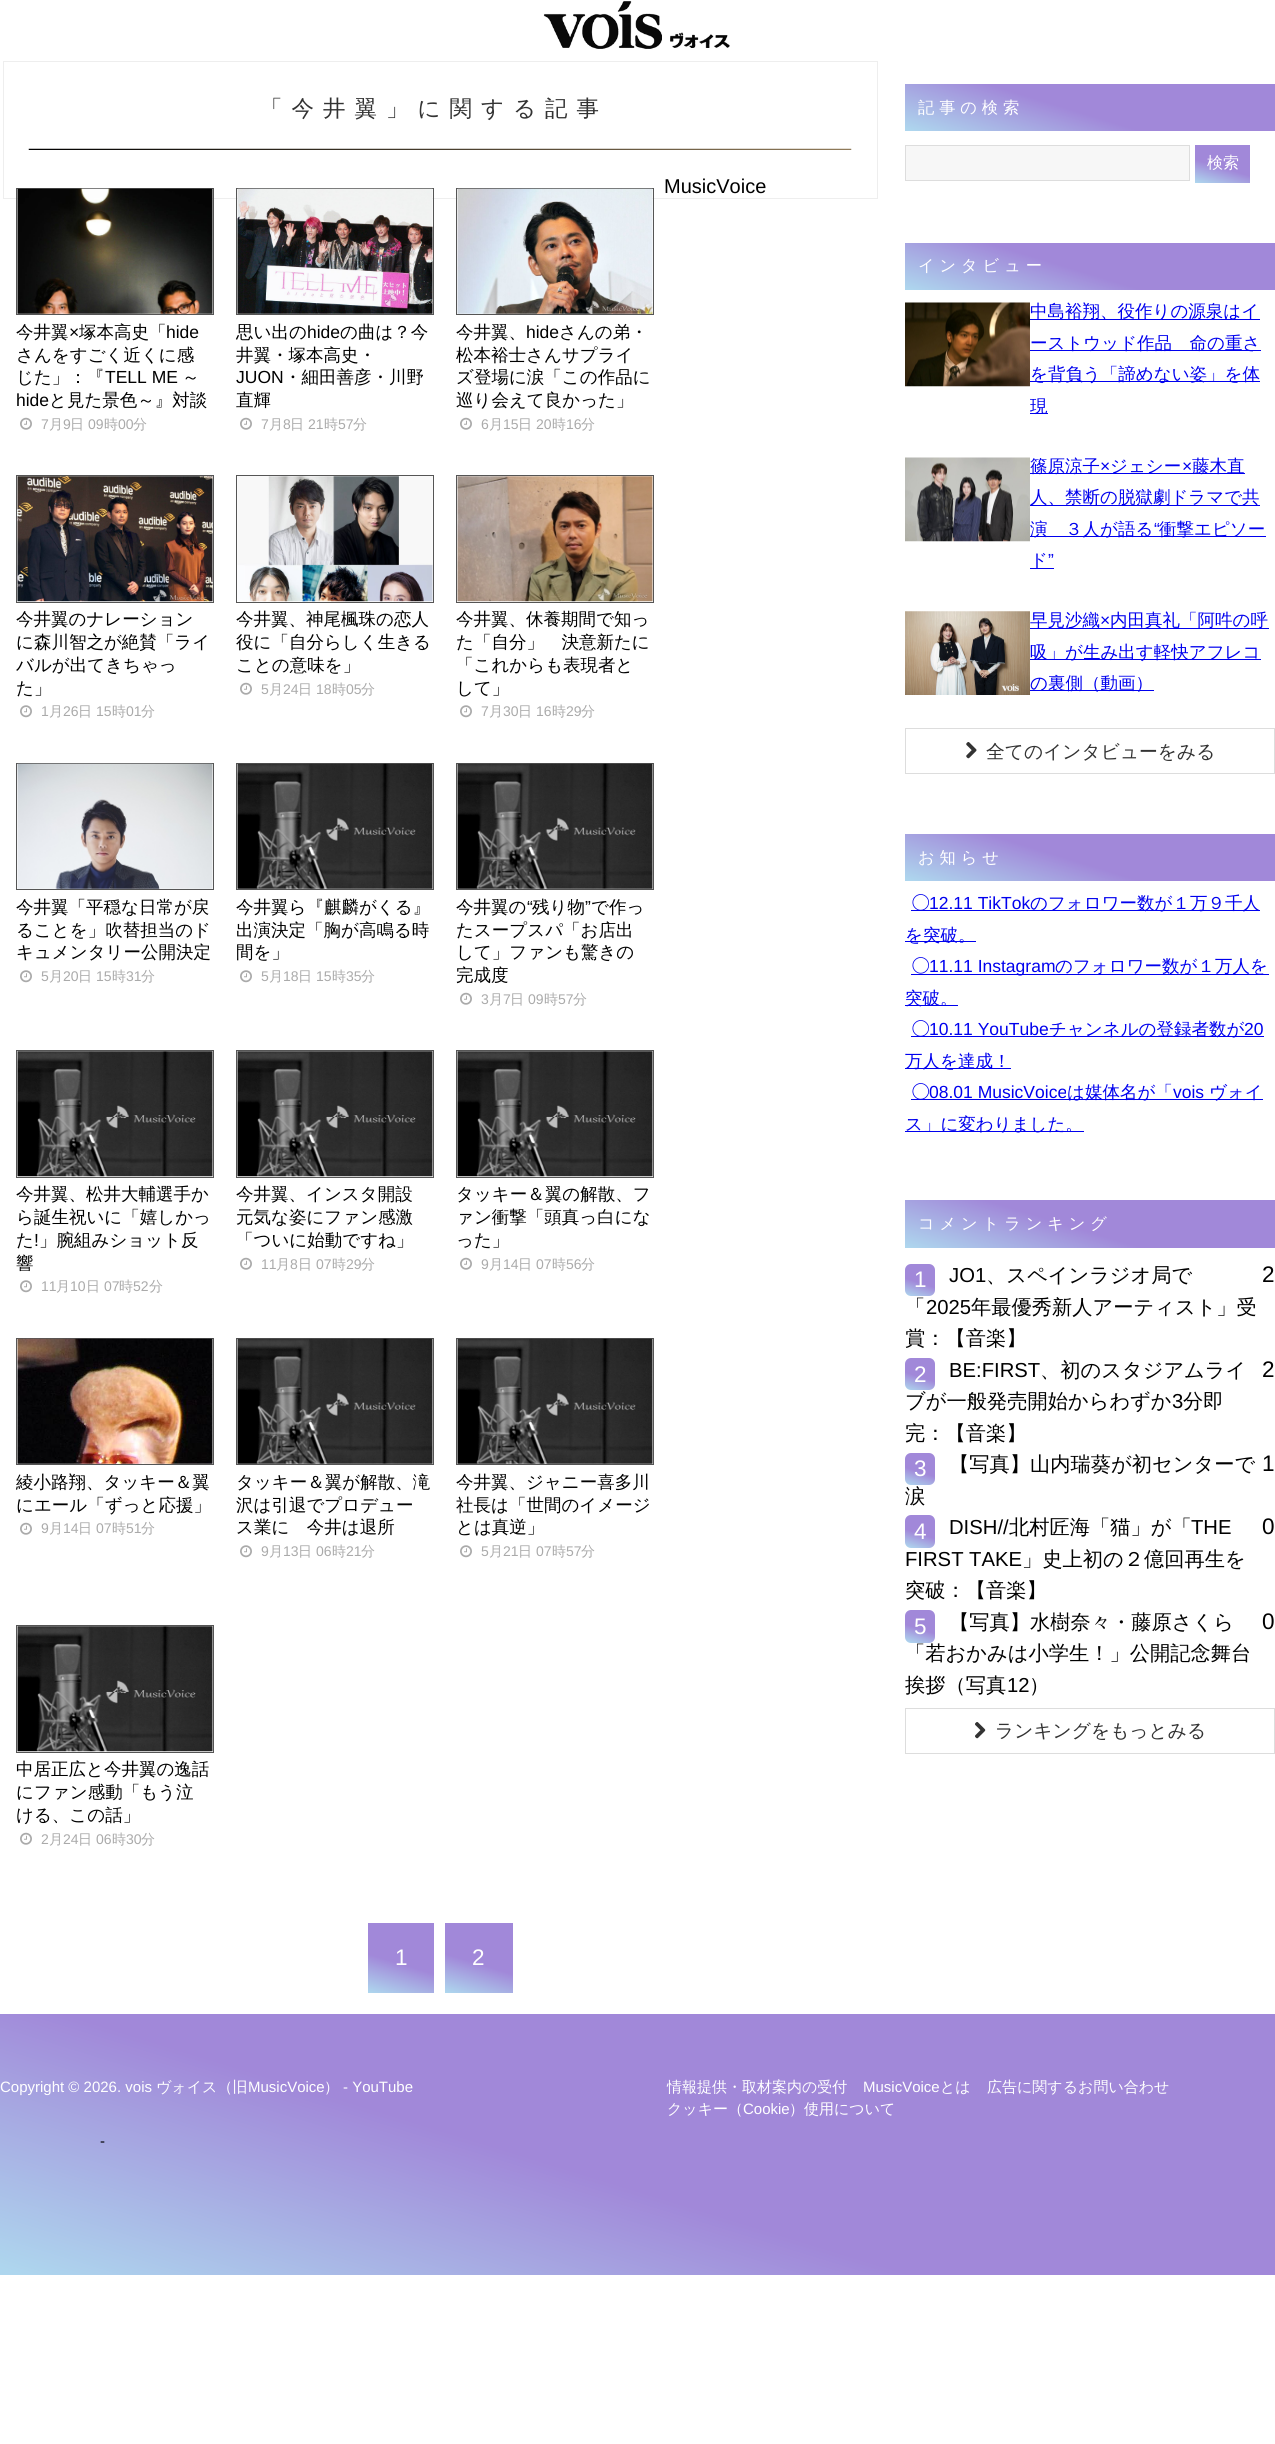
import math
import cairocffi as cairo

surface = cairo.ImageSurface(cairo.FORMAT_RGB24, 1275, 2444)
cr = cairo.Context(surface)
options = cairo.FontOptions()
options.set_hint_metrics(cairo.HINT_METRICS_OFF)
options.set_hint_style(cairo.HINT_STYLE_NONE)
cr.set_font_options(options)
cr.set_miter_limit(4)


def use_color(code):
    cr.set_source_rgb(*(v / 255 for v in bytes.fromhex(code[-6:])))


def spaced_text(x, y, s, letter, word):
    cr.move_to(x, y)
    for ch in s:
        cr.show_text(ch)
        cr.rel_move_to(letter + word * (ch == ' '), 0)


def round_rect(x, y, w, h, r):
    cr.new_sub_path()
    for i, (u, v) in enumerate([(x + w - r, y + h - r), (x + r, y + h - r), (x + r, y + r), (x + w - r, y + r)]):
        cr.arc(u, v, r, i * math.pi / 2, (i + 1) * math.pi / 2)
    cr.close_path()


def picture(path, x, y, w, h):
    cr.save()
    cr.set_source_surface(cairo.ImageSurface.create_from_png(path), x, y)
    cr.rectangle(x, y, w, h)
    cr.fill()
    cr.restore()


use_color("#ffffff")
cr.paint()
picture("img1.png", 543, 1, 187, 48)
cr.rectangle(3.5, 61.5, 874, 137)
use_color("#eeeeee")
cr.set_line_width(1)
cr.stroke()
picture("img2.png", 28, 148, 824, 2)
cr.select_font_face("WenQuanYi Zen Hei Medium")
cr.set_font_size(22.5)
use_color("#333333")
spaced_text(260, 116, "「今井翼」に関する記事", 9, 0)
cr.rectangle(16.5, 188.5, 197, 126)
use_color("#555555")
cr.stroke()
picture("img3.png", 17, 188, 196, 126)
cr.set_font_size(17.5)
use_color("#000000")
cr.move_to(16, 338)
cr.show_text("今井翼")
cr.select_font_face("Liberation Sans")
cr.move_to(69, 338)
cr.show_text("×")
cr.select_font_face("WenQuanYi Zen Hei Medium")
cr.move_to(79, 338)
cr.show_text("塚本高史「")
cr.select_font_face("Liberation Sans")
cr.move_to(166, 338)
cr.show_text("hide")
cr.select_font_face("WenQuanYi Zen Hei Medium")
cr.move_to(16, 361)
cr.show_text("さんをすごく近くに感")
cr.move_to(16, 383)
cr.show_text("じた」：『")
cr.select_font_face("Liberation Sans")
cr.move_to(105, 383)
cr.show_text("TELL ME")
cr.select_font_face("WenQuanYi Zen Hei Medium")
cr.move_to(182, 383)
cr.show_text("～")
cr.select_font_face("Liberation Sans")
cr.move_to(16, 406)
cr.show_text("hide")
cr.select_font_face("WenQuanYi Zen Hei Medium")
cr.move_to(49, 406)
cr.show_text("と見た景色～』対談")
picture("img4.png", 20, 417, 12, 13)
cr.select_font_face("Liberation Sans")
cr.set_font_size(14)
use_color("#aaaaaa")
cr.move_to(41, 429)
cr.show_text("7")
cr.select_font_face("WenQuanYi Zen Hei Medium")
cr.move_to(49, 429)
cr.show_text("月")
cr.select_font_face("Liberation Sans")
cr.move_to(63, 429)
cr.show_text("9")
cr.select_font_face("WenQuanYi Zen Hei Medium")
cr.move_to(70, 429)
cr.show_text("日")
cr.select_font_face("Liberation Sans")
cr.move_to(88, 429)
cr.show_text("09")
cr.select_font_face("WenQuanYi Zen Hei Medium")
cr.move_to(104, 429)
cr.show_text("時")
cr.select_font_face("Liberation Sans")
cr.move_to(118, 429)
cr.show_text("00")
cr.select_font_face("WenQuanYi Zen Hei Medium")
cr.move_to(133, 429)
cr.show_text("分")
cr.rectangle(236.5, 188.5, 197, 126)
use_color("#555555")
cr.stroke()
picture("img5.png", 237, 188, 196, 126)
cr.set_font_size(17.5)
use_color("#000000")
cr.move_to(236, 338)
cr.show_text("思い出の")
cr.select_font_face("Liberation Sans")
cr.move_to(307, 338)
cr.show_text("hide")
cr.select_font_face("WenQuanYi Zen Hei Medium")
cr.move_to(340, 338)
cr.show_text("の曲は？今")
cr.move_to(236, 361)
cr.show_text("井翼・塚本高史・")
cr.select_font_face("Liberation Sans")
cr.move_to(236, 383)
cr.show_text("JUON")
cr.select_font_face("WenQuanYi Zen Hei Medium")
cr.move_to(284, 383)
cr.show_text("・細田善彦・川野")
cr.move_to(236, 406)
cr.show_text("直輝")
picture("img4.png", 240, 417, 12, 13)
cr.select_font_face("Liberation Sans")
cr.set_font_size(14)
use_color("#aaaaaa")
cr.move_to(261, 429)
cr.show_text("7")
cr.select_font_face("WenQuanYi Zen Hei Medium")
cr.move_to(269, 429)
cr.show_text("月")
cr.select_font_face("Liberation Sans")
cr.move_to(283, 429)
cr.show_text("8")
cr.select_font_face("WenQuanYi Zen Hei Medium")
cr.move_to(290, 429)
cr.show_text("日")
cr.select_font_face("Liberation Sans")
cr.move_to(308, 429)
cr.show_text("21")
cr.select_font_face("WenQuanYi Zen Hei Medium")
cr.move_to(324, 429)
cr.show_text("時")
cr.select_font_face("Liberation Sans")
cr.move_to(338, 429)
cr.show_text("57")
cr.select_font_face("WenQuanYi Zen Hei Medium")
cr.move_to(353, 429)
cr.show_text("分")
cr.rectangle(456.5, 188.5, 197, 126)
use_color("#555555")
cr.stroke()
picture("img6.png", 457, 188, 196, 126)
cr.set_font_size(17.5)
use_color("#000000")
cr.move_to(456, 338)
cr.show_text("今井翼、")
cr.select_font_face("Liberation Sans")
cr.move_to(526, 338)
cr.show_text("hide")
cr.select_font_face("WenQuanYi Zen Hei Medium")
cr.move_to(559, 338)
cr.show_text("さんの弟・")
cr.move_to(456, 361)
cr.show_text("松本裕士さんサプライ")
cr.move_to(456, 383)
cr.show_text("ズ登場に涙「この作品に")
cr.move_to(456, 406)
cr.show_text("巡り会えて良かった」")
picture("img4.png", 460, 417, 12, 13)
cr.select_font_face("Liberation Sans")
cr.set_font_size(14)
use_color("#aaaaaa")
cr.move_to(481, 429)
cr.show_text("6")
cr.select_font_face("WenQuanYi Zen Hei Medium")
cr.move_to(489, 429)
cr.show_text("月")
cr.select_font_face("Liberation Sans")
cr.move_to(503, 429)
cr.show_text("15")
cr.select_font_face("WenQuanYi Zen Hei Medium")
cr.move_to(518, 429)
cr.show_text("日")
cr.select_font_face("Liberation Sans")
cr.move_to(536, 429)
cr.show_text("20")
cr.select_font_face("WenQuanYi Zen Hei Medium")
cr.move_to(552, 429)
cr.show_text("時")
cr.select_font_face("Liberation Sans")
cr.move_to(566, 429)
cr.show_text("16")
cr.select_font_face("WenQuanYi Zen Hei Medium")
cr.move_to(581, 429)
cr.show_text("分")
cr.rectangle(16.5, 475.5, 197, 127)
use_color("#555555")
cr.stroke()
picture("img7.png", 17, 476, 196, 126)
cr.set_font_size(17.5)
use_color("#000000")
cr.move_to(16, 625)
cr.show_text("今井翼のナレーション")
cr.move_to(16, 648)
cr.show_text("に森川智之が絶賛「ライ")
cr.move_to(16, 671)
cr.show_text("バルが出てきちゃっ")
cr.move_to(16, 694)
cr.show_text("た」")
picture("img8.png", 20, 705, 12, 13)
cr.select_font_face("Liberation Sans")
cr.set_font_size(14)
use_color("#aaaaaa")
cr.move_to(41, 716)
cr.show_text("1")
cr.select_font_face("WenQuanYi Zen Hei Medium")
cr.move_to(49, 716)
cr.show_text("月")
cr.select_font_face("Liberation Sans")
cr.move_to(63, 716)
cr.show_text("26")
cr.select_font_face("WenQuanYi Zen Hei Medium")
cr.move_to(78, 716)
cr.show_text("日")
cr.select_font_face("Liberation Sans")
cr.move_to(96, 716)
cr.show_text("15")
cr.select_font_face("WenQuanYi Zen Hei Medium")
cr.move_to(112, 716)
cr.show_text("時")
cr.select_font_face("Liberation Sans")
cr.move_to(126, 716)
cr.show_text("01")
cr.select_font_face("WenQuanYi Zen Hei Medium")
cr.move_to(141, 716)
cr.show_text("分")
cr.rectangle(236.5, 475.5, 197, 127)
use_color("#555555")
cr.stroke()
picture("img9.png", 237, 476, 196, 126)
cr.set_font_size(17.5)
use_color("#000000")
cr.move_to(236, 625)
cr.show_text("今井翼、神尾楓珠の恋人")
cr.move_to(236, 648)
cr.show_text("役に「自分らしく生きる")
cr.move_to(236, 671)
cr.show_text("ことの意味を」")
picture("img4.png", 240, 682, 12, 13)
cr.select_font_face("Liberation Sans")
cr.set_font_size(14)
use_color("#aaaaaa")
cr.move_to(261, 694)
cr.show_text("5")
cr.select_font_face("WenQuanYi Zen Hei Medium")
cr.move_to(269, 694)
cr.show_text("月")
cr.select_font_face("Liberation Sans")
cr.move_to(283, 694)
cr.show_text("24")
cr.select_font_face("WenQuanYi Zen Hei Medium")
cr.move_to(298, 694)
cr.show_text("日")
cr.select_font_face("Liberation Sans")
cr.move_to(316, 694)
cr.show_text("18")
cr.select_font_face("WenQuanYi Zen Hei Medium")
cr.move_to(332, 694)
cr.show_text("時")
cr.select_font_face("Liberation Sans")
cr.move_to(346, 694)
cr.show_text("05")
cr.select_font_face("WenQuanYi Zen Hei Medium")
cr.move_to(361, 694)
cr.show_text("分")
cr.rectangle(456.5, 475.5, 197, 127)
use_color("#555555")
cr.stroke()
picture("img10.png", 457, 476, 196, 126)
cr.set_font_size(17.5)
use_color("#000000")
cr.move_to(456, 625)
cr.show_text("今井翼、休養期間で知っ")
cr.move_to(456, 648)
cr.show_text("た「自分」　決意新たに")
cr.move_to(456, 671)
cr.show_text("「これからも表現者と")
cr.move_to(456, 694)
cr.show_text("して」")
picture("img8.png", 460, 705, 12, 13)
cr.select_font_face("Liberation Sans")
cr.set_font_size(14)
use_color("#aaaaaa")
cr.move_to(481, 716)
cr.show_text("7")
cr.select_font_face("WenQuanYi Zen Hei Medium")
cr.move_to(489, 716)
cr.show_text("月")
cr.select_font_face("Liberation Sans")
cr.move_to(503, 716)
cr.show_text("30")
cr.select_font_face("WenQuanYi Zen Hei Medium")
cr.move_to(518, 716)
cr.show_text("日")
cr.select_font_face("Liberation Sans")
cr.move_to(536, 716)
cr.show_text("16")
cr.select_font_face("WenQuanYi Zen Hei Medium")
cr.move_to(552, 716)
cr.show_text("時")
cr.select_font_face("Liberation Sans")
cr.move_to(566, 716)
cr.show_text("29")
cr.select_font_face("WenQuanYi Zen Hei Medium")
cr.move_to(581, 716)
cr.show_text("分")
cr.rectangle(16.5, 763.5, 197, 126)
use_color("#555555")
cr.stroke()
picture("img11.png", 17, 763, 196, 126)
cr.set_font_size(17.5)
use_color("#000000")
cr.move_to(16, 913)
cr.show_text("今井翼「平穏な日常が戻")
cr.move_to(16, 936)
cr.show_text("ることを」吹替担当のド")
cr.move_to(16, 958)
cr.show_text("キュメンタリー公開決定")
picture("img8.png", 20, 970, 12, 13)
cr.select_font_face("Liberation Sans")
cr.set_font_size(14)
use_color("#aaaaaa")
cr.move_to(41, 981)
cr.show_text("5")
cr.select_font_face("WenQuanYi Zen Hei Medium")
cr.move_to(49, 981)
cr.show_text("月")
cr.select_font_face("Liberation Sans")
cr.move_to(63, 981)
cr.show_text("20")
cr.select_font_face("WenQuanYi Zen Hei Medium")
cr.move_to(78, 981)
cr.show_text("日")
cr.select_font_face("Liberation Sans")
cr.move_to(96, 981)
cr.show_text("15")
cr.select_font_face("WenQuanYi Zen Hei Medium")
cr.move_to(112, 981)
cr.show_text("時")
cr.select_font_face("Liberation Sans")
cr.move_to(126, 981)
cr.show_text("31")
cr.select_font_face("WenQuanYi Zen Hei Medium")
cr.move_to(141, 981)
cr.show_text("分")
cr.rectangle(236.5, 763.5, 197, 126)
use_color("#555555")
cr.stroke()
picture("img12.png", 237, 763, 196, 126)
cr.set_font_size(17.5)
use_color("#000000")
cr.move_to(236, 913)
cr.show_text("今井翼ら『麒麟がくる』")
cr.move_to(236, 936)
cr.show_text("出演決定「胸が高鳴る時")
cr.move_to(236, 958)
cr.show_text("間を」")
picture("img8.png", 240, 970, 12, 13)
cr.select_font_face("Liberation Sans")
cr.set_font_size(14)
use_color("#aaaaaa")
cr.move_to(261, 981)
cr.show_text("5")
cr.select_font_face("WenQuanYi Zen Hei Medium")
cr.move_to(269, 981)
cr.show_text("月")
cr.select_font_face("Liberation Sans")
cr.move_to(283, 981)
cr.show_text("18")
cr.select_font_face("WenQuanYi Zen Hei Medium")
cr.move_to(298, 981)
cr.show_text("日")
cr.select_font_face("Liberation Sans")
cr.move_to(316, 981)
cr.show_text("15")
cr.select_font_face("WenQuanYi Zen Hei Medium")
cr.move_to(332, 981)
cr.show_text("時")
cr.select_font_face("Liberation Sans")
cr.move_to(346, 981)
cr.show_text("35")
cr.select_font_face("WenQuanYi Zen Hei Medium")
cr.move_to(361, 981)
cr.show_text("分")
cr.rectangle(456.5, 763.5, 197, 126)
use_color("#555555")
cr.stroke()
picture("img12.png", 457, 763, 196, 126)
cr.set_font_size(17.5)
use_color("#000000")
cr.move_to(456, 913)
cr.show_text("今井翼の")
cr.select_font_face("Liberation Sans")
cr.move_to(527, 913)
cr.show_text("“")
cr.select_font_face("WenQuanYi Zen Hei Medium")
cr.move_to(532, 913)
cr.show_text("残り物")
cr.select_font_face("Liberation Sans")
cr.move_to(585, 913)
cr.show_text("”")
cr.select_font_face("WenQuanYi Zen Hei Medium")
cr.move_to(591, 913)
cr.show_text("で作っ")
cr.move_to(456, 936)
cr.show_text("たスープスパ「お店出")
cr.move_to(456, 958)
cr.show_text("して」ファンも驚きの")
cr.move_to(456, 981)
cr.show_text("完成度")
picture("img4.png", 460, 992, 12, 13)
cr.select_font_face("Liberation Sans")
cr.set_font_size(14)
use_color("#aaaaaa")
cr.move_to(481, 1004)
cr.show_text("3")
cr.select_font_face("WenQuanYi Zen Hei Medium")
cr.move_to(489, 1004)
cr.show_text("月")
cr.select_font_face("Liberation Sans")
cr.move_to(503, 1004)
cr.show_text("7")
cr.select_font_face("WenQuanYi Zen Hei Medium")
cr.move_to(510, 1004)
cr.show_text("日")
cr.select_font_face("Liberation Sans")
cr.move_to(528, 1004)
cr.show_text("09")
cr.select_font_face("WenQuanYi Zen Hei Medium")
cr.move_to(544, 1004)
cr.show_text("時")
cr.select_font_face("Liberation Sans")
cr.move_to(558, 1004)
cr.show_text("57")
cr.select_font_face("WenQuanYi Zen Hei Medium")
cr.move_to(573, 1004)
cr.show_text("分")
cr.rectangle(16.5, 1050.5, 197, 127)
use_color("#555555")
cr.stroke()
picture("img13.png", 17, 1051, 196, 126)
cr.set_font_size(17.5)
use_color("#000000")
cr.move_to(16, 1200)
cr.show_text("今井翼、松井大輔選手か")
cr.move_to(16, 1223)
cr.show_text("ら誕生祝いに「嬉しかっ")
cr.move_to(16, 1246)
cr.show_text("た")
cr.select_font_face("Liberation Sans")
cr.move_to(34, 1246)
cr.show_text("!")
cr.select_font_face("WenQuanYi Zen Hei Medium")
cr.move_to(39, 1246)
cr.show_text("」腕組みショット反")
cr.move_to(16, 1269)
cr.show_text("響")
picture("img8.png", 20, 1280, 12, 13)
cr.select_font_face("Liberation Sans")
cr.set_font_size(14)
use_color("#aaaaaa")
cr.move_to(41, 1291)
cr.show_text("11")
cr.select_font_face("WenQuanYi Zen Hei Medium")
cr.move_to(56, 1291)
cr.show_text("月")
cr.select_font_face("Liberation Sans")
cr.move_to(70, 1291)
cr.show_text("10")
cr.select_font_face("WenQuanYi Zen Hei Medium")
cr.move_to(86, 1291)
cr.show_text("日")
cr.select_font_face("Liberation Sans")
cr.move_to(104, 1291)
cr.show_text("07")
cr.select_font_face("WenQuanYi Zen Hei Medium")
cr.move_to(119, 1291)
cr.show_text("時")
cr.select_font_face("Liberation Sans")
cr.move_to(133, 1291)
cr.show_text("52")
cr.select_font_face("WenQuanYi Zen Hei Medium")
cr.move_to(149, 1291)
cr.show_text("分")
cr.rectangle(236.5, 1050.5, 197, 127)
use_color("#555555")
cr.stroke()
picture("img13.png", 237, 1051, 196, 126)
cr.set_font_size(17.5)
use_color("#000000")
cr.move_to(236, 1200)
cr.show_text("今井翼、インスタ開設")
cr.move_to(236, 1223)
cr.show_text("元気な姿にファン感激")
cr.move_to(236, 1246)
cr.show_text("「ついに始動ですね」")
picture("img4.png", 240, 1257, 12, 13)
cr.select_font_face("Liberation Sans")
cr.set_font_size(14)
use_color("#aaaaaa")
cr.move_to(261, 1269)
cr.show_text("11")
cr.select_font_face("WenQuanYi Zen Hei Medium")
cr.move_to(276, 1269)
cr.show_text("月")
cr.select_font_face("Liberation Sans")
cr.move_to(290, 1269)
cr.show_text("8")
cr.select_font_face("WenQuanYi Zen Hei Medium")
cr.move_to(298, 1269)
cr.show_text("日")
cr.select_font_face("Liberation Sans")
cr.move_to(316, 1269)
cr.show_text("07")
cr.select_font_face("WenQuanYi Zen Hei Medium")
cr.move_to(332, 1269)
cr.show_text("時")
cr.select_font_face("Liberation Sans")
cr.move_to(346, 1269)
cr.show_text("29")
cr.select_font_face("WenQuanYi Zen Hei Medium")
cr.move_to(361, 1269)
cr.show_text("分")
cr.rectangle(456.5, 1050.5, 197, 127)
use_color("#555555")
cr.stroke()
picture("img13.png", 457, 1051, 196, 126)
cr.set_font_size(17.5)
use_color("#000000")
cr.move_to(456, 1200)
cr.show_text("タッキー＆翼の解散、フ")
cr.move_to(456, 1223)
cr.show_text("ァン衝撃「頭真っ白にな")
cr.move_to(456, 1246)
cr.show_text("った」")
picture("img4.png", 460, 1257, 12, 13)
cr.select_font_face("Liberation Sans")
cr.set_font_size(14)
use_color("#aaaaaa")
cr.move_to(481, 1269)
cr.show_text("9")
cr.select_font_face("WenQuanYi Zen Hei Medium")
cr.move_to(489, 1269)
cr.show_text("月")
cr.select_font_face("Liberation Sans")
cr.move_to(503, 1269)
cr.show_text("14")
cr.select_font_face("WenQuanYi Zen Hei Medium")
cr.move_to(518, 1269)
cr.show_text("日")
cr.select_font_face("Liberation Sans")
cr.move_to(536, 1269)
cr.show_text("07")
cr.select_font_face("WenQuanYi Zen Hei Medium")
cr.move_to(552, 1269)
cr.show_text("時")
cr.select_font_face("Liberation Sans")
cr.move_to(566, 1269)
cr.show_text("56")
cr.select_font_face("WenQuanYi Zen Hei Medium")
cr.move_to(581, 1269)
cr.show_text("分")
cr.rectangle(16.5, 1338.5, 197, 126)
use_color("#555555")
cr.stroke()
picture("img14.png", 17, 1338, 196, 126)
cr.set_font_size(17.5)
use_color("#000000")
cr.move_to(16, 1488)
cr.show_text("綾小路翔、タッキー＆翼")
cr.move_to(16, 1511)
cr.show_text("にエール「ずっと応援」")
picture("img4.png", 20, 1522, 12, 13)
cr.select_font_face("Liberation Sans")
cr.set_font_size(14)
use_color("#aaaaaa")
cr.move_to(41, 1533)
cr.show_text("9")
cr.select_font_face("WenQuanYi Zen Hei Medium")
cr.move_to(49, 1533)
cr.show_text("月")
cr.select_font_face("Liberation Sans")
cr.move_to(63, 1533)
cr.show_text("14")
cr.select_font_face("WenQuanYi Zen Hei Medium")
cr.move_to(78, 1533)
cr.show_text("日")
cr.select_font_face("Liberation Sans")
cr.move_to(96, 1533)
cr.show_text("07")
cr.select_font_face("WenQuanYi Zen Hei Medium")
cr.move_to(112, 1533)
cr.show_text("時")
cr.select_font_face("Liberation Sans")
cr.move_to(126, 1533)
cr.show_text("51")
cr.select_font_face("WenQuanYi Zen Hei Medium")
cr.move_to(141, 1533)
cr.show_text("分")
cr.rectangle(236.5, 1338.5, 197, 126)
use_color("#555555")
cr.stroke()
picture("img12.png", 237, 1338, 196, 126)
cr.set_font_size(17.5)
use_color("#000000")
cr.move_to(236, 1488)
cr.show_text("タッキー＆翼が解散、滝")
cr.move_to(236, 1511)
cr.show_text("沢は引退でプロデュー")
cr.move_to(236, 1533)
cr.show_text("ス業に　今井は退所")
picture("img8.png", 240, 1545, 12, 13)
cr.select_font_face("Liberation Sans")
cr.set_font_size(14)
use_color("#aaaaaa")
cr.move_to(261, 1556)
cr.show_text("9")
cr.select_font_face("WenQuanYi Zen Hei Medium")
cr.move_to(269, 1556)
cr.show_text("月")
cr.select_font_face("Liberation Sans")
cr.move_to(283, 1556)
cr.show_text("13")
cr.select_font_face("WenQuanYi Zen Hei Medium")
cr.move_to(298, 1556)
cr.show_text("日")
cr.select_font_face("Liberation Sans")
cr.move_to(316, 1556)
cr.show_text("06")
cr.select_font_face("WenQuanYi Zen Hei Medium")
cr.move_to(332, 1556)
cr.show_text("時")
cr.select_font_face("Liberation Sans")
cr.move_to(346, 1556)
cr.show_text("21")
cr.select_font_face("WenQuanYi Zen Hei Medium")
cr.move_to(361, 1556)
cr.show_text("分")
cr.rectangle(456.5, 1338.5, 197, 126)
use_color("#555555")
cr.stroke()
picture("img12.png", 457, 1338, 196, 126)
cr.set_font_size(17.5)
use_color("#000000")
cr.move_to(456, 1488)
cr.show_text("今井翼、ジャニー喜多川")
cr.move_to(456, 1511)
cr.show_text("社長は「世間のイメージ")
cr.move_to(456, 1533)
cr.show_text("とは真逆」")
picture("img8.png", 460, 1545, 12, 13)
cr.select_font_face("Liberation Sans")
cr.set_font_size(14)
use_color("#aaaaaa")
cr.move_to(481, 1556)
cr.show_text("5")
cr.select_font_face("WenQuanYi Zen Hei Medium")
cr.move_to(489, 1556)
cr.show_text("月")
cr.select_font_face("Liberation Sans")
cr.move_to(503, 1556)
cr.show_text("21")
cr.select_font_face("WenQuanYi Zen Hei Medium")
cr.move_to(518, 1556)
cr.show_text("日")
cr.select_font_face("Liberation Sans")
cr.move_to(536, 1556)
cr.show_text("07")
cr.select_font_face("WenQuanYi Zen Hei Medium")
cr.move_to(552, 1556)
cr.show_text("時")
cr.select_font_face("Liberation Sans")
cr.move_to(566, 1556)
cr.show_text("57")
cr.select_font_face("WenQuanYi Zen Hei Medium")
cr.move_to(581, 1556)
cr.show_text("分")
cr.rectangle(16.5, 1625.5, 197, 127)
use_color("#555555")
cr.stroke()
picture("img13.png", 17, 1626, 196, 126)
cr.set_font_size(17.5)
use_color("#000000")
cr.move_to(16, 1775)
cr.show_text("中居正広と今井翼の逸話")
cr.move_to(16, 1798)
cr.show_text("にファン感動「もう泣")
cr.move_to(16, 1821)
cr.show_text("ける、この話」")
picture("img4.png", 20, 1832, 12, 13)
cr.select_font_face("Liberation Sans")
cr.set_font_size(14)
use_color("#aaaaaa")
cr.move_to(41, 1844)
cr.show_text("2")
cr.select_font_face("WenQuanYi Zen Hei Medium")
cr.move_to(49, 1844)
cr.show_text("月")
cr.select_font_face("Liberation Sans")
cr.move_to(63, 1844)
cr.show_text("24")
cr.select_font_face("WenQuanYi Zen Hei Medium")
cr.move_to(78, 1844)
cr.show_text("日")
cr.select_font_face("Liberation Sans")
cr.move_to(96, 1844)
cr.show_text("06")
cr.select_font_face("WenQuanYi Zen Hei Medium")
cr.move_to(112, 1844)
cr.show_text("時")
cr.select_font_face("Liberation Sans")
cr.move_to(126, 1844)
cr.show_text("30")
cr.select_font_face("WenQuanYi Zen Hei Medium")
cr.move_to(141, 1844)
cr.show_text("分")
gradient = cairo.LinearGradient(388, 1999, 413, 1916)
gradient.add_color_stop_rgba(0.01, 0.682, 0.839, 0.933, 1)
gradient.add_color_stop_rgba(0.43, 0.631, 0.533, 0.851, 1)
cr.set_source(gradient)
cr.rectangle(368, 1923, 66, 70)
cr.fill()
cr.select_font_face("Liberation Sans")
cr.set_font_size(22.5)
use_color("#ffffff")
cr.move_to(395, 1965)
cr.show_text("1")
gradient = cairo.LinearGradient(466, 1999, 491, 1916)
gradient.add_color_stop_rgba(0.01, 0.682, 0.839, 0.933, 1)
gradient.add_color_stop_rgba(0.43, 0.631, 0.533, 0.851, 1)
cr.set_source(gradient)
cr.rectangle(445, 1923, 68, 70)
cr.fill()
use_color("#ffffff")
cr.move_to(472, 1965)
cr.show_text("2")
cr.set_font_size(20)
use_color("#000000")
cr.move_to(664, 193)
cr.show_text("MusicVoice")
gradient = cairo.LinearGradient(1079, 184, 1126, 31)
gradient.add_color_stop_rgba(0.01, 0.682, 0.839, 0.933, 1)
gradient.add_color_stop_rgba(0.43, 0.631, 0.533, 0.851, 1)
cr.set_source(gradient)
cr.rectangle(905, 84, 370, 47)
cr.fill()
cr.select_font_face("WenQuanYi Zen Hei Medium")
cr.set_font_size(16.25)
use_color("#ffffff")
spaced_text(918, 113, "記事の検索", 4.9, 0)
use_color("#f7f7f7")
cr.rectangle(905.5, 145.5, 284, 35)
cr.fill_preserve()
use_color("#dddddd")
cr.stroke()
gradient = cairo.LinearGradient(1215, 189, 1230, 139)
gradient.add_color_stop_rgba(0.01, 0.682, 0.839, 0.933, 1)
gradient.add_color_stop_rgba(0.43, 0.631, 0.533, 0.851, 1)
cr.set_source(gradient)
cr.rectangle(1195, 145, 55, 38)
cr.fill()
cr.set_font_size(16)
use_color("#ffffff")
cr.move_to(1207, 168)
cr.show_text("検索")
gradient = cairo.LinearGradient(1079, 343, 1126, 189)
gradient.add_color_stop_rgba(0.01, 0.682, 0.839, 0.933, 1)
gradient.add_color_stop_rgba(0.43, 0.631, 0.533, 0.851, 1)
cr.set_source(gradient)
cr.rectangle(905, 243, 370, 47)
cr.fill()
cr.set_font_size(16.25)
use_color("#ffffff")
spaced_text(918, 271, "インタビュー", 4.9, 0)
picture("img15.png", 905, 302, 125, 85)
use_color("#0000ee")
cr.rectangle(1030, 319, 230, 1)
cr.fill()
cr.set_font_size(17.5)
cr.move_to(1030, 317)
cr.show_text("中島裕翔、役作りの源泉はイ")
cr.rectangle(1030, 350, 231, 1)
cr.fill()
cr.move_to(1030, 349)
cr.show_text("ーストウッド作品　命の重さ")
cr.rectangle(1030, 381, 230, 1)
cr.fill()
cr.move_to(1030, 380)
cr.show_text("を背負う「諦めない姿」を体")
cr.rectangle(1030, 413, 18, 1)
cr.fill()
cr.move_to(1030, 412)
cr.show_text("現")
picture("img16.png", 905, 457, 125, 85)
cr.rectangle(1030, 473, 215, 1)
cr.fill()
cr.move_to(1030, 472)
cr.show_text("篠原涼子")
cr.select_font_face("Liberation Sans")
cr.move_to(1100, 472)
cr.show_text("×")
cr.select_font_face("WenQuanYi Zen Hei Medium")
cr.move_to(1110, 472)
cr.show_text("ジェシー")
cr.select_font_face("Liberation Sans")
cr.move_to(1182, 472)
cr.show_text("×")
cr.select_font_face("WenQuanYi Zen Hei Medium")
cr.move_to(1192, 472)
cr.show_text("藤木直")
cr.rectangle(1030, 505, 230, 1)
cr.fill()
cr.move_to(1030, 503)
cr.show_text("人、禁断の脱獄劇ドラマで共")
cr.rectangle(1030, 536, 236, 1)
cr.fill()
cr.move_to(1030, 535)
cr.show_text("演　３人が語る")
cr.select_font_face("Liberation Sans")
cr.move_to(1154, 535)
cr.show_text("“")
cr.select_font_face("WenQuanYi Zen Hei Medium")
cr.move_to(1159, 535)
cr.show_text("衝撃エピソー")
cr.rectangle(1030, 568, 24, 1)
cr.fill()
cr.move_to(1030, 566)
cr.show_text("ド")
cr.select_font_face("Liberation Sans")
cr.move_to(1048, 566)
cr.show_text("”")
picture("img17.png", 905, 611, 125, 84)
cr.rectangle(1030, 628, 239, 1)
cr.fill()
cr.select_font_face("WenQuanYi Zen Hei Medium")
cr.move_to(1030, 626)
cr.show_text("早見沙織")
cr.select_font_face("Liberation Sans")
cr.move_to(1100, 626)
cr.show_text("×")
cr.select_font_face("WenQuanYi Zen Hei Medium")
cr.move_to(1110, 626)
cr.show_text("内田真礼「阿吽の呼")
cr.rectangle(1030, 659, 231, 1)
cr.fill()
cr.move_to(1030, 658)
cr.show_text("吸」が生み出す軽快アフレコ")
cr.rectangle(1030, 690, 124, 1)
cr.fill()
cr.move_to(1030, 689)
cr.show_text("の裏側（動画）")
cr.rectangle(905.5, 728.5, 369, 45)
use_color("#dddddd")
cr.stroke()
picture("img18.png", 966, 742, 11, 17)
cr.set_font_size(18.75)
use_color("#333333")
cr.move_to(986, 758)
cr.show_text("全てのインタビューをみる")
gradient = cairo.LinearGradient(1079, 934, 1126, 781)
gradient.add_color_stop_rgba(0.01, 0.682, 0.839, 0.933, 1)
gradient.add_color_stop_rgba(0.43, 0.631, 0.533, 0.851, 1)
cr.set_source(gradient)
cr.rectangle(905, 834, 370, 47)
cr.fill()
cr.set_font_size(16.25)
use_color("#ffffff")
spaced_text(918, 863, "お知らせ", 4.9, 0)
use_color("#0000ee")
cr.rectangle(911, 910, 349, 1)
cr.fill()
cr.select_font_face("IPAPGothic")
cr.set_font_size(17.5)
cr.move_to(912, 909)
cr.show_text("◯")
cr.select_font_face("Liberation Sans")
cr.move_to(929, 909)
cr.show_text("12.11 TikTok")
cr.select_font_face("WenQuanYi Zen Hei Medium")
cr.move_to(1030, 909)
cr.show_text("のフォロワー数が１万９千人")
cr.rectangle(905, 941, 71, 1)
cr.fill()
cr.move_to(905, 941)
cr.show_text("を突破。")
cr.select_font_face("IPAPGothic")
cr.move_to(912, 972)
cr.show_text("◯")
cr.rectangle(911, 974, 358, 1)
cr.fill()
cr.select_font_face("Liberation Sans")
cr.move_to(929, 972)
cr.show_text("11.11 Instagram")
cr.select_font_face("WenQuanYi Zen Hei Medium")
cr.move_to(1055, 972)
cr.show_text("のフォロワー数が１万人を")
cr.rectangle(905, 1005, 53, 1)
cr.fill()
cr.move_to(905, 1004)
cr.show_text("突破。")
cr.rectangle(911, 1036, 353, 1)
cr.fill()
cr.select_font_face("IPAPGothic")
cr.move_to(912, 1035)
cr.show_text("◯")
cr.select_font_face("Liberation Sans")
cr.move_to(929, 1035)
cr.show_text("10.11 YouTube")
cr.select_font_face("WenQuanYi Zen Hei Medium")
cr.move_to(1049, 1035)
cr.show_text("チャンネルの登録者数が")
cr.select_font_face("Liberation Sans")
cr.move_to(1244, 1035)
cr.show_text("20")
cr.rectangle(905, 1068, 106, 1)
cr.fill()
cr.select_font_face("WenQuanYi Zen Hei Medium")
cr.move_to(905, 1067)
cr.show_text("万人を達成！")
cr.rectangle(911, 1099, 352, 1)
cr.fill()
cr.select_font_face("IPAPGothic")
cr.move_to(912, 1098)
cr.show_text("◯")
cr.select_font_face("Liberation Sans")
cr.move_to(929, 1098)
cr.show_text("08.01 MusicVoice")
cr.select_font_face("WenQuanYi Zen Hei Medium")
cr.move_to(1067, 1098)
cr.show_text("は媒体名が「")
cr.select_font_face("Liberation Sans")
cr.move_to(1173, 1098)
cr.show_text("vois")
cr.select_font_face("WenQuanYi Zen Hei Medium")
cr.move_to(1209, 1098)
cr.show_text("ヴォイ")
cr.rectangle(905, 1131, 179, 1)
cr.fill()
cr.move_to(905, 1130)
cr.show_text("ス」に変わりました。")
gradient = cairo.LinearGradient(1079, 1301, 1126, 1147)
gradient.add_color_stop_rgba(0.01, 0.682, 0.839, 0.933, 1)
gradient.add_color_stop_rgba(0.43, 0.631, 0.533, 0.851, 1)
cr.set_source(gradient)
cr.rectangle(905, 1200, 370, 48)
cr.fill()
cr.set_font_size(16.25)
use_color("#ffffff")
spaced_text(918, 1229, "コメントランキング", 4.9, 0)
cr.select_font_face("Liberation Sans")
cr.set_font_size(20.25)
use_color("#000000")
cr.move_to(949, 1282)
cr.show_text("JO1")
cr.select_font_face("WenQuanYi Zen Hei Medium")
cr.move_to(986, 1282)
cr.show_text("、スペインラジオ局で")
cr.move_to(905, 1314)
cr.show_text("「")
cr.select_font_face("Liberation Sans")
cr.move_to(926, 1314)
cr.show_text("2025")
cr.select_font_face("WenQuanYi Zen Hei Medium")
cr.move_to(971, 1314)
cr.show_text("年最優秀新⼈アーティスト」受")
cr.move_to(905, 1345)
cr.show_text("賞：【音楽】")
cr.select_font_face("Liberation Sans")
cr.set_font_size(22.5)
cr.move_to(1262, 1282)
cr.show_text("2")
gradient = cairo.LinearGradient(914, 1299, 926, 1261)
gradient.add_color_stop_rgba(0.01, 0.682, 0.839, 0.933, 1)
gradient.add_color_stop_rgba(0.43, 0.631, 0.533, 0.851, 1)
cr.set_source(gradient)
round_rect(905, 1264, 30, 32, 6)
cr.fill()
use_color("#ffffff")
cr.move_to(914, 1287)
cr.show_text("1")
cr.set_font_size(20.25)
use_color("#000000")
cr.move_to(949, 1377)
cr.show_text("BE:FIRST")
cr.select_font_face("WenQuanYi Zen Hei Medium")
cr.move_to(1040, 1377)
cr.show_text("、初のスタジアムライ")
cr.move_to(905, 1408)
cr.show_text("ブが一般発売開始からわずか")
cr.select_font_face("Liberation Sans")
cr.move_to(1172, 1408)
cr.show_text("3")
cr.select_font_face("WenQuanYi Zen Hei Medium")
cr.move_to(1183, 1408)
cr.show_text("分即")
cr.move_to(905, 1440)
cr.show_text("完：【音楽】")
cr.select_font_face("Liberation Sans")
cr.set_font_size(22.5)
cr.move_to(1262, 1377)
cr.show_text("2")
gradient = cairo.LinearGradient(914, 1393, 926, 1355)
gradient.add_color_stop_rgba(0.01, 0.682, 0.839, 0.933, 1)
gradient.add_color_stop_rgba(0.43, 0.631, 0.533, 0.851, 1)
cr.set_source(gradient)
round_rect(905, 1358, 30, 32, 6)
cr.fill()
use_color("#ffffff")
cr.move_to(914, 1382)
cr.show_text("2")
cr.select_font_face("WenQuanYi Zen Hei Medium")
cr.set_font_size(20.25)
use_color("#000000")
cr.move_to(949, 1471)
cr.show_text("【写真】山内瑞葵が初センターで")
cr.move_to(905, 1503)
cr.show_text("涙")
cr.select_font_face("Liberation Sans")
cr.set_font_size(22.5)
cr.move_to(1262, 1471)
cr.show_text("1")
gradient = cairo.LinearGradient(914, 1488, 926, 1450)
gradient.add_color_stop_rgba(0.01, 0.682, 0.839, 0.933, 1)
gradient.add_color_stop_rgba(0.43, 0.631, 0.533, 0.851, 1)
cr.set_source(gradient)
round_rect(905, 1453, 30, 32, 6)
cr.fill()
use_color("#ffffff")
cr.move_to(914, 1476)
cr.show_text("3")
cr.set_font_size(20.25)
use_color("#000000")
cr.move_to(949, 1534)
cr.show_text("DISH//")
cr.select_font_face("WenQuanYi Zen Hei Medium")
cr.move_to(1009, 1534)
cr.show_text("北村匠海「猫」が「")
cr.select_font_face("Liberation Sans")
cr.move_to(1191, 1534)
cr.show_text("THE")
cr.move_to(905, 1566)
cr.show_text("FIRST TAKE")
cr.select_font_face("WenQuanYi Zen Hei Medium")
cr.move_to(1022, 1566)
cr.show_text("」史上初の２億回再生を")
cr.move_to(905, 1597)
cr.show_text("突破：【音楽】")
cr.select_font_face("Liberation Sans")
cr.set_font_size(22.5)
cr.move_to(1262, 1534)
cr.show_text("0")
gradient = cairo.LinearGradient(914, 1550, 926, 1512)
gradient.add_color_stop_rgba(0.01, 0.682, 0.839, 0.933, 1)
gradient.add_color_stop_rgba(0.43, 0.631, 0.533, 0.851, 1)
cr.set_source(gradient)
round_rect(905, 1515, 30, 33, 6)
cr.fill()
use_color("#ffffff")
cr.move_to(914, 1539)
cr.show_text("4")
cr.select_font_face("WenQuanYi Zen Hei Medium")
cr.set_font_size(20.25)
use_color("#000000")
cr.move_to(949, 1629)
cr.show_text("【写真】水樹奈々・藤原さくら")
cr.move_to(905, 1660)
cr.show_text("「若おかみは小学生！」公開記念舞台")
cr.move_to(905, 1692)
cr.show_text("挨拶（写真")
cr.select_font_face("Liberation Sans")
cr.move_to(1007, 1692)
cr.show_text("12")
cr.select_font_face("WenQuanYi Zen Hei Medium")
cr.move_to(1029, 1692)
cr.show_text("）")
cr.select_font_face("Liberation Sans")
cr.set_font_size(22.5)
cr.move_to(1262, 1629)
cr.show_text("0")
gradient = cairo.LinearGradient(914, 1645, 926, 1607)
gradient.add_color_stop_rgba(0.01, 0.682, 0.839, 0.933, 1)
gradient.add_color_stop_rgba(0.43, 0.631, 0.533, 0.851, 1)
cr.set_source(gradient)
round_rect(905, 1610, 30, 33, 6)
cr.fill()
use_color("#ffffff")
cr.move_to(914, 1634)
cr.show_text("5")
cr.rectangle(905.5, 1708.5, 369, 45)
use_color("#dddddd")
cr.stroke()
picture("img19.png", 975, 1722, 11, 17)
cr.select_font_face("WenQuanYi Zen Hei Medium")
cr.set_font_size(18.75)
use_color("#333333")
cr.move_to(995, 1737)
cr.show_text("ランキングをもっとみる")
gradient = cairo.LinearGradient(546, 2442, 729, 1847)
gradient.add_color_stop_rgba(0.01, 0.682, 0.839, 0.933, 1)
gradient.add_color_stop_rgba(0.43, 0.631, 0.533, 0.851, 1)
cr.set_source(gradient)
cr.rectangle(0, 2014, 1275, 261)
cr.fill()
cr.select_font_face("Liberation Sans")
cr.set_font_size(15)
use_color("#ffffff")
cr.move_to(0, 2092)
cr.show_text("Copyright © 2026. vois")
cr.select_font_face("WenQuanYi Zen Hei Medium")
cr.move_to(156, 2092)
cr.show_text("ヴォイス（旧")
cr.select_font_face("Liberation Sans")
cr.move_to(248, 2092)
cr.show_text("MusicVoice")
cr.select_font_face("WenQuanYi Zen Hei Medium")
cr.move_to(324, 2092)
cr.show_text("）")
cr.select_font_face("Liberation Sans")
cr.move_to(343, 2092)
cr.show_text("- YouTube")
cr.select_font_face("WenQuanYi Zen Hei Medium")
cr.move_to(667, 2092)
cr.show_text("情報提供・取材案内の受付")
cr.select_font_face("Liberation Sans")
cr.move_to(863, 2092)
cr.show_text("MusicVoice")
cr.select_font_face("WenQuanYi Zen Hei Medium")
cr.move_to(940, 2092)
cr.show_text("とは")
cr.move_to(987, 2092)
cr.show_text("広告に関するお問い合わせ")
cr.move_to(667, 2114)
cr.show_text("クッキー（")
cr.select_font_face("Liberation Sans")
cr.move_to(743, 2114)
cr.show_text("Cookie")
cr.select_font_face("WenQuanYi Zen Hei Medium")
cr.move_to(789, 2114)
cr.show_text("）使用について")
cr.select_font_face("Liberation Sans")
use_color("#000000")
cr.move_to(100, 2146)
cr.show_text("-")
surface.write_to_png("result.png")
